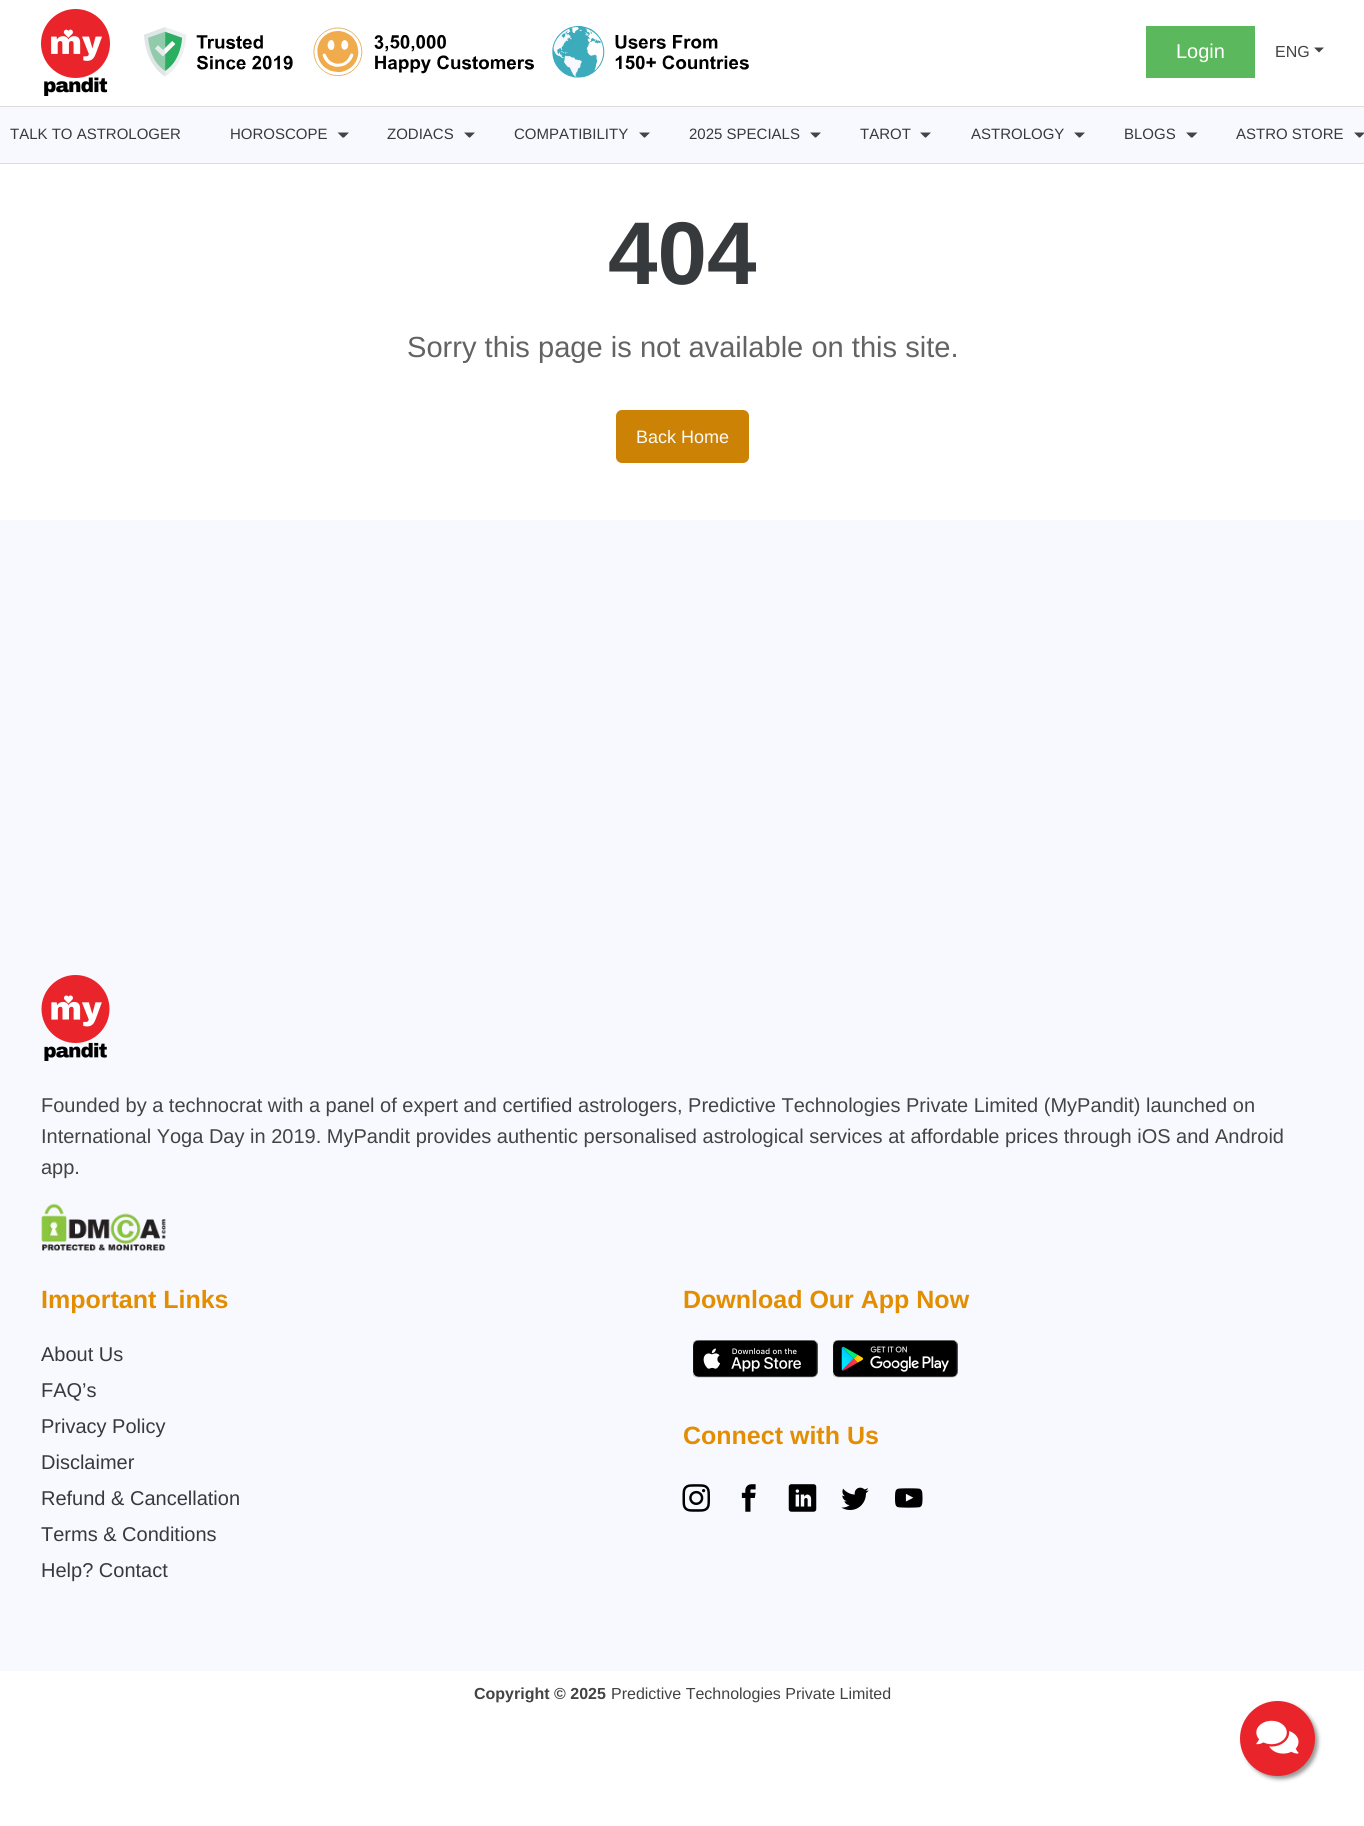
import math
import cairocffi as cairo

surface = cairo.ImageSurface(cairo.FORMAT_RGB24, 1364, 1826)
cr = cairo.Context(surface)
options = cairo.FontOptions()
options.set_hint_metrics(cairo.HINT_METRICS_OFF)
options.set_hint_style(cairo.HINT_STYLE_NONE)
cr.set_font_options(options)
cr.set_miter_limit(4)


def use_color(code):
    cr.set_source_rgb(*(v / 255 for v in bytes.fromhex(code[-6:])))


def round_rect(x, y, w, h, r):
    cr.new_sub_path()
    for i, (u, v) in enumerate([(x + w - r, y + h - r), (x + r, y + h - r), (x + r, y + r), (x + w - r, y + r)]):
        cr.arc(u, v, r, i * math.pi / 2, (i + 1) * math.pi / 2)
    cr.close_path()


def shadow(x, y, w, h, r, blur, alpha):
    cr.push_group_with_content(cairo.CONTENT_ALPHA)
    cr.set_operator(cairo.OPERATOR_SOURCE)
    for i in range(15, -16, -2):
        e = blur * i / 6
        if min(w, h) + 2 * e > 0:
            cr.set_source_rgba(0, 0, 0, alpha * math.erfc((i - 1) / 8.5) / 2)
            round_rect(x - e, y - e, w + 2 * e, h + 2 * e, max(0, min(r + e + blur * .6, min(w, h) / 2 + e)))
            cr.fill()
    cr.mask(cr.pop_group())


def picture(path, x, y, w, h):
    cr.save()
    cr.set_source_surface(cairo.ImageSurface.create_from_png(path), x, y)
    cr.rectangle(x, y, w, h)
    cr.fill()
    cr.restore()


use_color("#ffffff")
cr.paint()
picture("img1.png", 41, 9, 69, 87)
picture("img2.png", 144, 26, 605, 52)
use_color("#5cb85c")
cr.rectangle(1146, 26, 109, 52)
cr.fill()
cr.select_font_face("Liberation Sans")
cr.set_font_size(20)
use_color("#ffffff")
cr.move_to(1176, 58)
cr.show_text("Login")
cr.set_font_size(16)
use_color("#434343")
cr.move_to(1275, 57)
cr.show_text("ENG")
cr.new_path()
cr.move_to(1314, 47.5)
cr.line_to(1324, 47.5)
cr.line_to(1319, 52.5)
cr.close_path()
cr.fill()
use_color("#f8f8ff")
cr.rectangle(0, 107, 1364, 56)
cr.fill()
use_color("#dddddd")
cr.rectangle(0, 106, 1364, 1)
cr.fill()
cr.rectangle(0, 163, 1364, 1)
cr.fill()
cr.set_font_size(15)
use_color("#373a3c")
cr.move_to(10, 139)
cr.show_text("TALK TO ASTROLOGER")
cr.move_to(230, 139)
cr.show_text("HOROSCOPE")
use_color("#434343")
cr.new_path()
cr.move_to(337.5, 132.5)
cr.line_to(349, 132.5)
cr.line_to(344, 137.5)
cr.line_to(342.5, 137.5)
cr.close_path()
cr.fill()
use_color("#373a3c")
cr.move_to(387, 139)
cr.show_text("ZODIACS")
use_color("#434343")
cr.new_path()
cr.move_to(464, 132.5)
cr.line_to(475, 132.5)
cr.line_to(470, 137.5)
cr.line_to(469, 137.5)
cr.close_path()
cr.fill()
use_color("#373a3c")
cr.move_to(514, 139)
cr.show_text("COMPATIBILITY")
use_color("#434343")
cr.new_path()
cr.move_to(639, 132.5)
cr.line_to(650, 132.5)
cr.line_to(645, 137.5)
cr.line_to(644, 137.5)
cr.close_path()
cr.fill()
use_color("#373a3c")
cr.move_to(689, 139)
cr.show_text("2025 SPECIALS")
use_color("#434343")
cr.new_path()
cr.move_to(810, 132.5)
cr.line_to(821, 132.5)
cr.line_to(816, 137.5)
cr.line_to(815, 137.5)
cr.close_path()
cr.fill()
use_color("#373a3c")
cr.move_to(860, 139)
cr.show_text("TAROT")
use_color("#434343")
cr.new_path()
cr.move_to(920, 132.5)
cr.line_to(931, 132.5)
cr.line_to(926, 137.5)
cr.line_to(925, 137.5)
cr.close_path()
cr.fill()
use_color("#373a3c")
cr.move_to(971, 139)
cr.show_text("ASTROLOGY")
use_color("#434343")
cr.new_path()
cr.move_to(1074, 132.5)
cr.line_to(1085, 132.5)
cr.line_to(1080, 137.5)
cr.line_to(1079, 137.5)
cr.close_path()
cr.fill()
use_color("#373a3c")
cr.move_to(1124, 139)
cr.show_text("BLOGS")
use_color("#434343")
cr.new_path()
cr.move_to(1186, 132.5)
cr.line_to(1197.5, 132.5)
cr.line_to(1192.5, 137.5)
cr.line_to(1191, 137.5)
cr.close_path()
cr.fill()
use_color("#373a3c")
cr.move_to(1236, 139)
cr.show_text("ASTRO STORE")
use_color("#434343")
cr.new_path()
cr.move_to(1354, 132.5)
cr.line_to(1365, 132.5)
cr.line_to(1360, 137.5)
cr.line_to(1359, 137.5)
cr.close_path()
cr.fill()
cr.select_font_face("Liberation Sans", cairo.FONT_SLANT_NORMAL, cairo.FONT_WEIGHT_BOLD)
cr.set_font_size(89)
use_color("#373a3c")
cr.move_to(608, 284)
cr.show_text("404")
cr.select_font_face("Liberation Sans")
cr.set_font_size(29.1)
use_color("#636363")
cr.move_to(407, 357)
cr.show_text("Sorry this page is not available on this site.")
use_color("#cc8205")
round_rect(616, 410, 133, 53, 6)
cr.fill()
cr.set_font_size(18)
use_color("#f9f9f9")
cr.move_to(636, 443)
cr.show_text("Back Home")
use_color("#f8f8ff")
cr.rectangle(0, 520, 1364, 1151)
cr.fill()
picture("img3.png", 41, 975, 69, 86)
cr.set_font_size(20)
use_color("#434343")
cr.move_to(41, 1112)
cr.show_text("Founded by a technocrat with a panel of expert and certified astrologers, Predictive Technologies Private Limited (MyPandit) launched on")
cr.move_to(41, 1143)
cr.show_text("International Yoga Day in 2019. MyPandit provides authentic personalised astrological services at affordable prices through iOS and Android")
cr.move_to(41, 1174)
cr.show_text("app.")
picture("img4.png", 41, 1203, 125, 48)
cr.select_font_face("Liberation Sans", cairo.FONT_SLANT_NORMAL, cairo.FONT_WEIGHT_BOLD)
cr.set_font_size(25)
use_color("#e28e00")
cr.move_to(41, 1308)
cr.show_text("Important Links")
cr.select_font_face("Liberation Sans")
cr.set_font_size(20)
use_color("#373a3c")
cr.move_to(41, 1361)
cr.show_text("About Us")
cr.move_to(41, 1397)
cr.show_text("FAQ’s")
cr.move_to(41, 1433)
cr.show_text("Privacy Policy")
cr.move_to(41, 1469)
cr.show_text("Disclaimer")
cr.move_to(41, 1505)
cr.show_text("Refund & Cancellation")
cr.move_to(41, 1541)
cr.show_text("Terms & Conditions")
cr.move_to(41, 1577)
cr.show_text("Help? Contact")
cr.select_font_face("Liberation Sans", cairo.FONT_SLANT_NORMAL, cairo.FONT_WEIGHT_BOLD)
cr.set_font_size(25)
use_color("#e28e00")
cr.move_to(683, 1308)
cr.show_text("Download Our App Now")
picture("img5.png", 693, 1340, 125, 38)
picture("img6.png", 833, 1340, 125, 38)
cr.move_to(683, 1444)
cr.show_text("Connect with Us")
picture("img7.png", 682, 1484, 28, 28)
picture("img8.png", 741, 1484, 15, 28)
picture("img9.png", 788, 1484, 29, 28)
picture("img10.png", 841, 1487, 28, 23)
picture("img11.png", 895, 1488, 28, 20)
cr.set_font_size(16)
use_color("#434343")
cr.move_to(474, 1699)
cr.show_text("Copyright © 2025")
cr.select_font_face("Liberation Sans")
cr.move_to(611, 1699)
cr.show_text("Predictive Technologies Private Limited")
use_color("#999999")
shadow(1243, 1704, 75, 75, 37.5, 2, 1)
use_color("#e9242b")
cr.arc(1277.5, 1738.5, 37.5, 0, 2 * math.pi)
cr.fill()
picture("img12.png", 1256, 1720, 43, 34)
surface.write_to_png("result.png")
